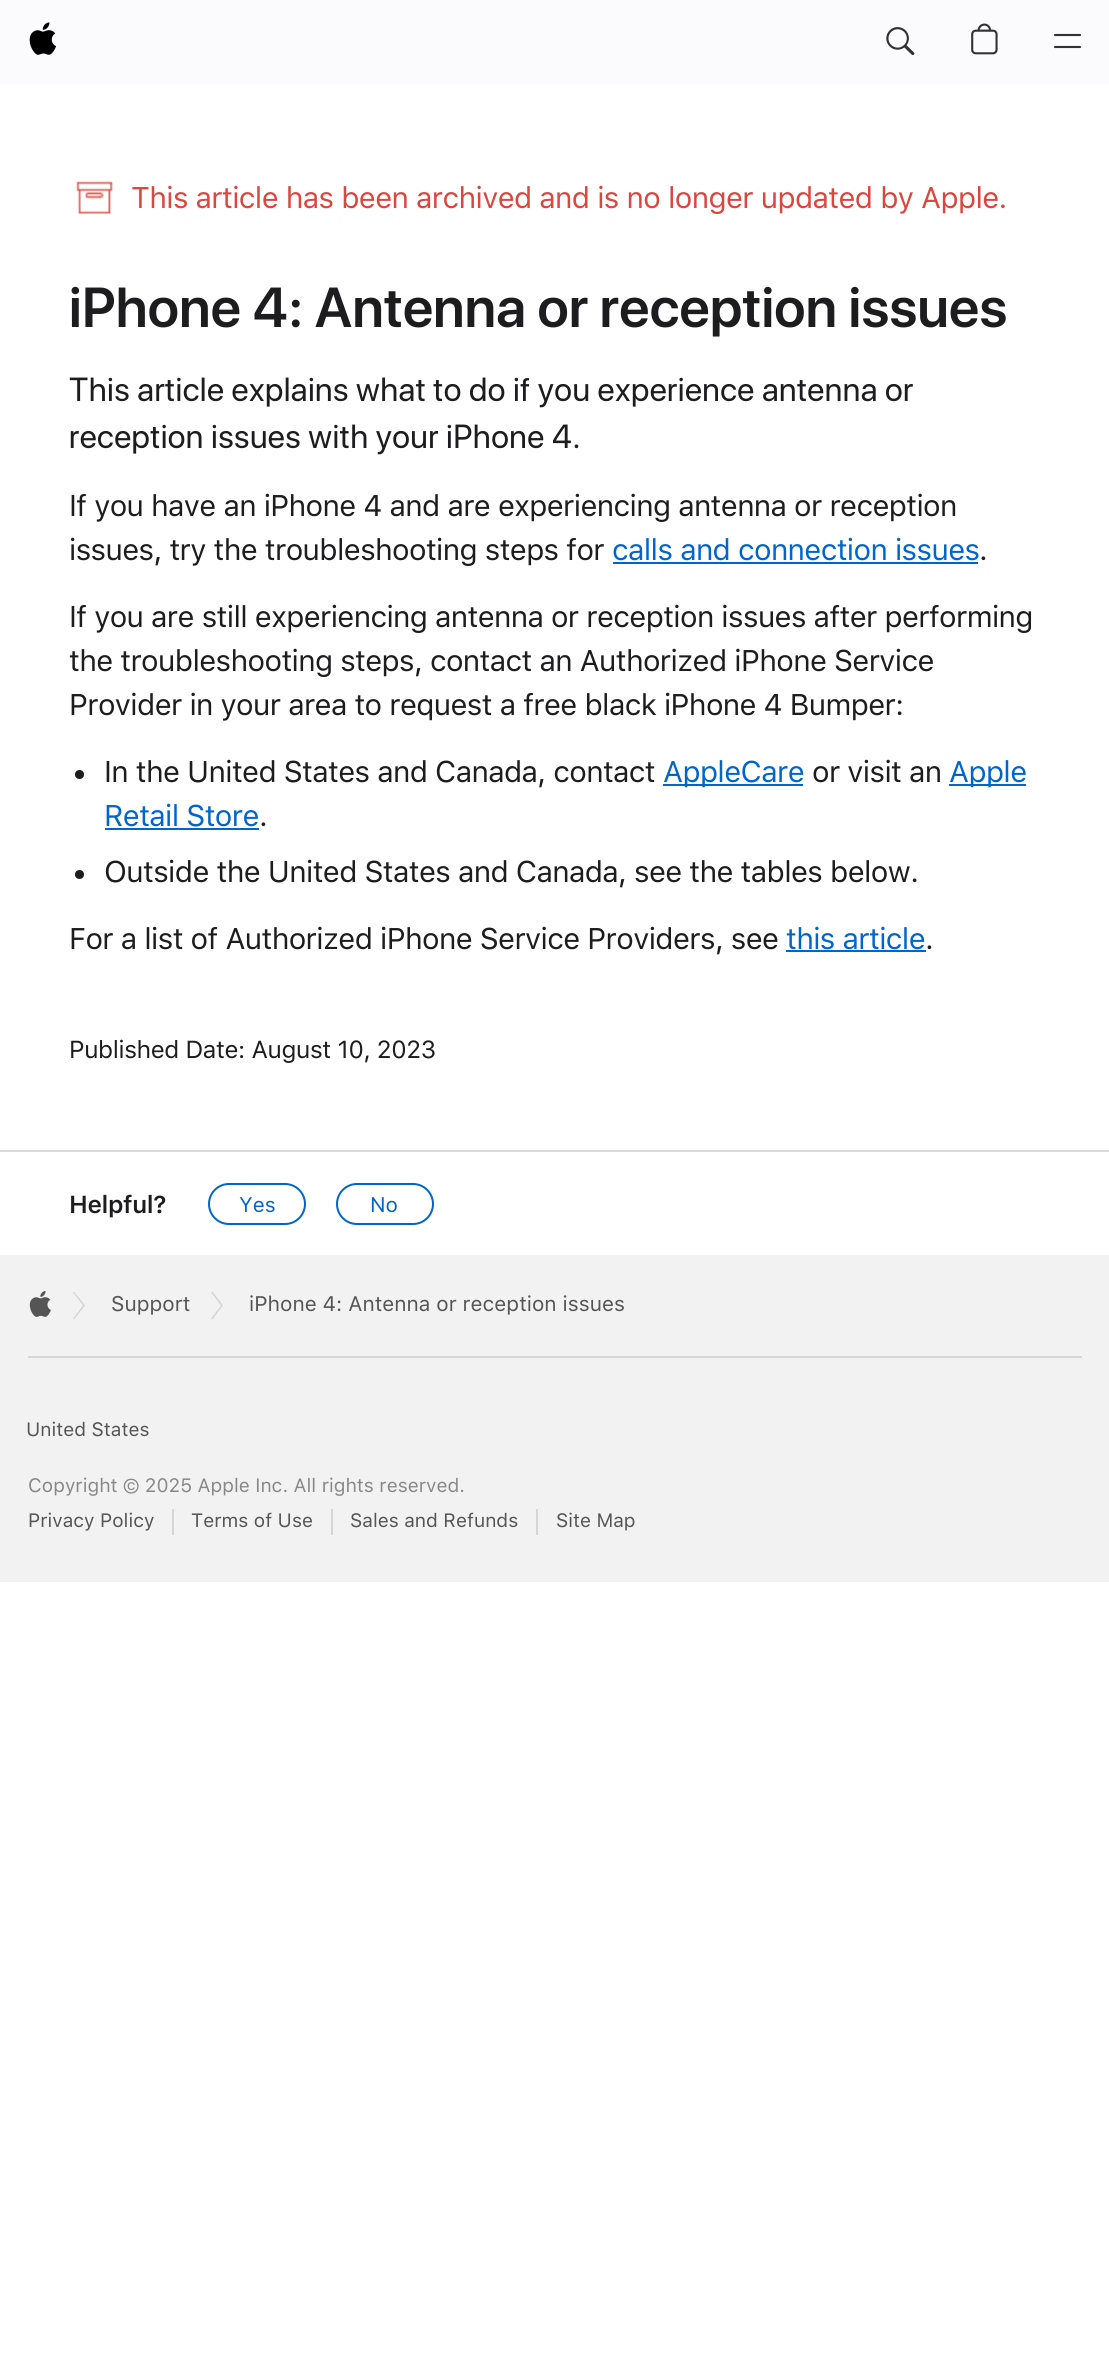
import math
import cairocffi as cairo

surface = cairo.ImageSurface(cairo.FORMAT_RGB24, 1109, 2380)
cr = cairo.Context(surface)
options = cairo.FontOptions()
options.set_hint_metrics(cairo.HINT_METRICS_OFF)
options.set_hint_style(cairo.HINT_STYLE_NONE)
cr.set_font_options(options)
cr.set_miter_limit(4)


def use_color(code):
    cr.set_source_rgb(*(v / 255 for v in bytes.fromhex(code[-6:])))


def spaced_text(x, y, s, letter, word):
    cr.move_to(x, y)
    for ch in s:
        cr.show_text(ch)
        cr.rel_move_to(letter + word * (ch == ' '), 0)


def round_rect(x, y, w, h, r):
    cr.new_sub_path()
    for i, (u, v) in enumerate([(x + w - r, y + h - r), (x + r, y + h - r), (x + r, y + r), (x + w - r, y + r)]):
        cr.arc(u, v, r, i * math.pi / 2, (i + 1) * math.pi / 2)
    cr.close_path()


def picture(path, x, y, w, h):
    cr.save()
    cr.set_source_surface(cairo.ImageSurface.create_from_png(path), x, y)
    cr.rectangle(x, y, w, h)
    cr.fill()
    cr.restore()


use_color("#ffffff")
cr.paint()
use_color("#fbfbfd")
cr.rectangle(0, 0, 1109, 84)
cr.fill()
picture("img1.png", 29, 22, 27, 33)
picture("img2.png", 886, 27, 29, 29)
picture("img3.png", 971, 23, 27, 32)
cr.new_path()
cr.move_to(1055, 47)
cr.line_to(1080, 47)
cr.move_to(1055, 35)
cr.line_to(1080, 35)
use_color("#323233")
cr.set_line_width(2.1)
cr.set_line_cap(cairo.LINE_CAP_ROUND)
cr.set_line_join(cairo.LINE_JOIN_ROUND)
cr.stroke()
picture("img4.png", 76, 181, 37, 33)
cr.select_font_face("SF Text")
cr.set_font_size(29.75)
use_color("#da473f")
spaced_text(131, 208, "This article has been archived and is no longer updated by Apple.", -0.65, 0)
cr.select_font_face("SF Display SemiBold")
cr.set_font_size(56)
use_color("#1d1d1f")
spaced_text(69, 327, "iPhone 4: Antenna or reception issues", 0.2, 0)
cr.select_font_face("SF Display")
cr.set_font_size(33.25)
spaced_text(69, 401, "This article explains what to do if you experience antenna or", 0.4, 0)
spaced_text(69, 448, "reception issues with your iPhone 4.", 0.4, 0)
cr.select_font_face("SF Text")
cr.set_font_size(29.75)
spaced_text(69, 516, "If you have an iPhone 4 and are experiencing antenna or reception", -0.65, 0)
spaced_text(69, 560, "issues, try the troubleshooting steps for", -0.65, 0)
use_color("#0066cc")
spaced_text(612, 560, "calls and connection issues", -0.65, 0)
cr.rectangle(613, 562, 365, 2)
cr.fill()
use_color("#1d1d1f")
spaced_text(979, 560, ".", -0.65, 0)
spaced_text(69, 627, "If you are still experiencing antenna or reception issues after performing", -0.65, 0)
spaced_text(69, 671, "the troubleshooting steps, contact an Authorized iPhone Service", -0.65, 0)
spaced_text(69, 715, "Provider in your area to request a free black iPhone 4 Bumper:", -0.65, 0)
cr.new_path()
cr.arc(79.5, 774.5, 4.5, 0, 2 * math.pi)
cr.fill()
spaced_text(104, 782, "In the United States and Canada, contact", -0.65, 0)
use_color("#0066cc")
cr.rectangle(663, 784, 140, 2)
cr.fill()
spaced_text(663, 782, "AppleCare", -0.65, 0)
use_color("#1d1d1f")
spaced_text(812, 782, "or visit an", -0.65, 0)
use_color("#0066cc")
cr.rectangle(949, 784, 77, 2)
cr.fill()
spaced_text(949, 782, "Apple", -0.65, 0)
spaced_text(104, 826, "Retail Store", -0.65, 0)
cr.rectangle(105, 828, 154, 2)
cr.fill()
use_color("#1d1d1f")
spaced_text(259, 826, ".", -0.65, 0)
cr.new_path()
cr.arc(79.5, 874.5, 4.5, 0, 2 * math.pi)
cr.fill()
spaced_text(104, 882, "Outside the United States and Canada, see the tables below.", -0.65, 0)
spaced_text(69, 949, "For a list of Authorized iPhone Service Providers, see", -0.65, 0)
use_color("#0066cc")
spaced_text(786, 949, "this article", -0.65, 0)
cr.rectangle(786, 950, 140, 2)
cr.fill()
use_color("#1d1d1f")
spaced_text(925, 949, ".", -0.65, 0)
cr.set_font_size(24.5)
spaced_text(69, 1058, "Published Date: August 10, 2023", -0.4, 0)
use_color("#d9d9d9")
cr.rectangle(0, 1150, 1109, 2)
cr.fill()
cr.select_font_face("SF Text SemiBold")
use_color("#1d1d1f")
spaced_text(69, 1213, "Helpful?", -0.4, 0)
round_rect(209, 1184, 96, 40, 20)
use_color("#0066cc")
cr.set_line_width(2)
cr.set_line_cap(cairo.LINE_CAP_BUTT)
cr.set_line_join(cairo.LINE_JOIN_MITER)
cr.stroke()
cr.select_font_face("SF Text")
cr.set_font_size(21)
cr.move_to(239, 1212)
cr.show_text("Yes")
round_rect(337, 1184, 96, 40, 20)
cr.stroke()
cr.move_to(370, 1212)
cr.show_text("No")
use_color("#f2f2f2")
cr.rectangle(0, 1255, 1109, 327)
cr.fill()
use_color("#d6d6d6")
cr.rectangle(28, 1356, 1054, 2)
cr.fill()
picture("img5.png", 29, 1291, 22, 26)
cr.new_path()
cr.move_to(74, 1291.5)
cr.line_to(85, 1305.5)
cr.line_to(74, 1319.5)
cr.line_to(73, 1318.5)
cr.line_to(83, 1305.5)
cr.line_to(73, 1292.5)
cr.close_path()
cr.fill()
use_color("#555555")
cr.move_to(111, 1311)
cr.show_text("Support")
use_color("#d6d6d6")
cr.new_path()
cr.move_to(212.5, 1291.5)
cr.line_to(223, 1305.5)
cr.line_to(212.5, 1319.5)
cr.line_to(211, 1318.5)
cr.line_to(221, 1305.5)
cr.line_to(211, 1292.5)
cr.close_path()
cr.fill()
use_color("#555555")
cr.move_to(249, 1311)
cr.show_text("iPhone 4: Antenna or reception issues")
cr.set_font_size(19.25)
cr.move_to(26, 1436)
cr.show_text("United States")
use_color("#888888")
cr.move_to(28, 1492)
cr.show_text("Copyright © 2025 Apple Inc. All rights reserved.")
use_color("#d6d6d6")
cr.rectangle(172, 1509, 2, 26)
cr.fill()
use_color("#555555")
cr.move_to(28, 1527)
cr.show_text("Privacy Policy")
use_color("#d6d6d6")
cr.rectangle(331, 1509, 2, 26)
cr.fill()
use_color("#555555")
cr.move_to(191, 1527)
cr.show_text("Terms of Use")
use_color("#d6d6d6")
cr.rectangle(536, 1509, 2, 26)
cr.fill()
use_color("#555555")
cr.move_to(350, 1527)
cr.show_text("Sales and Refunds")
cr.move_to(556, 1527)
cr.show_text("Site Map")
surface.write_to_png("result.png")
